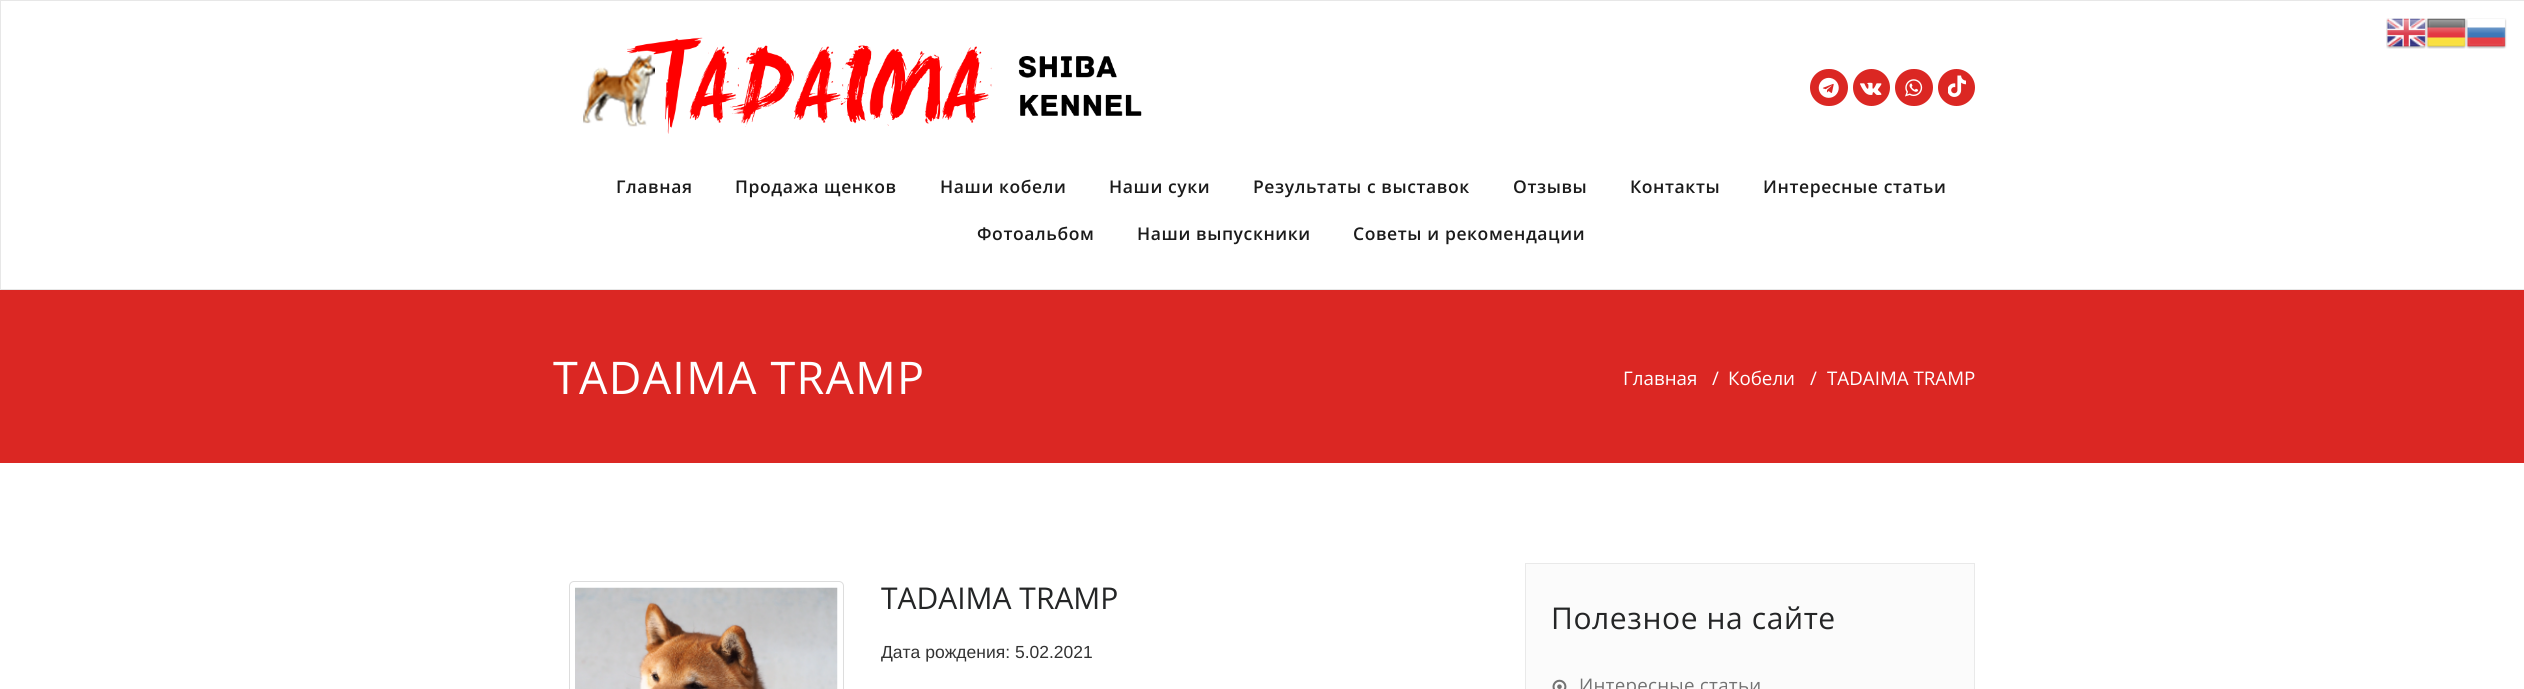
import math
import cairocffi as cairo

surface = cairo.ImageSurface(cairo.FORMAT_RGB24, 2524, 689)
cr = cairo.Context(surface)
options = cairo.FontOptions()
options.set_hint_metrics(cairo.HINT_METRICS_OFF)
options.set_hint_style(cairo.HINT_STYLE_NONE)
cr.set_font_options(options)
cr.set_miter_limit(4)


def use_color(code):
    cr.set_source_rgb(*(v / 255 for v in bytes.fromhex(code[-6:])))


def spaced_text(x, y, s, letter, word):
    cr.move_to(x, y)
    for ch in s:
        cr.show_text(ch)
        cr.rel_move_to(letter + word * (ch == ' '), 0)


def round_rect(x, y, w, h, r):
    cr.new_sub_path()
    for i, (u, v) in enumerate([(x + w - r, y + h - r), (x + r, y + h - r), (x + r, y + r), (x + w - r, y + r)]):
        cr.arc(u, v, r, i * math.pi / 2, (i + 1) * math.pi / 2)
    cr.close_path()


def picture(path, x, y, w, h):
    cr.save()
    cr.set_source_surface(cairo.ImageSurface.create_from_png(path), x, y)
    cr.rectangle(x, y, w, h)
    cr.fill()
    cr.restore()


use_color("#ffffff")
cr.paint()
cr.rectangle(0.5, 0.5, 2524, 289)
use_color("#e7e7e7")
cr.set_line_width(1)
cr.stroke()
picture("img1.png", 2386, 18, 41, 31)
picture("img2.png", 2426, 18, 41, 31)
picture("img3.png", 2466, 18, 41, 31)
picture("img4.png", 583, 37, 559, 97)
use_color("#db2723")
round_rect(1810, 69, 38, 37, 18.5)
cr.fill()
picture("img5.png", 1818, 77, 21, 21)
cr.arc(1871.5, 87.5, 18.5, 0, 2 * math.pi)
cr.fill()
picture("img6.png", 1860, 82, 22, 13)
round_rect(1895, 69, 38, 37, 18.5)
cr.fill()
picture("img7.png", 1905, 79, 18, 18)
cr.arc(1956.5, 87.5, 18.5, 0, 2 * math.pi)
cr.fill()
picture("img8.png", 1948, 75, 18, 22)
cr.select_font_face("Open Sans SemiBold")
cr.set_font_size(17.5)
use_color("#1b1b1b")
spaced_text(616, 193, "Главная", 0.6, 0)
spaced_text(735, 193, "Продажа щенков", 0.6, 0)
spaced_text(940, 193, "Наши кобели", 0.6, 0)
spaced_text(1109, 193, "Наши суки", 0.6, 0)
spaced_text(1253, 193, "Результаты с выставок", 0.6, 0)
spaced_text(1513, 193, "Отзывы", 0.6, 0)
spaced_text(1630, 193, "Контакты", 0.6, 0)
spaced_text(1763, 193, "Интересные статьи", 0.6, 0)
spaced_text(977, 240, "Фотоальбом", 0.6, 0)
spaced_text(1137, 240, "Наши выпускники", 0.6, 0)
spaced_text(1353, 240, "Советы и рекомендации", 0.6, 0)
use_color("#db2723")
cr.rectangle(0, 290, 2524, 173)
cr.fill()
cr.select_font_face("Open Sans")
cr.set_font_size(45)
use_color("#ffffff")
spaced_text(553, 394, "TADAIMA TRAMP", 1.25, 0)
cr.set_font_size(18.75)
cr.move_to(1623, 385)
cr.show_text("Главная")
cr.move_to(1712, 385)
cr.show_text("/")
cr.move_to(1728, 385)
cr.show_text("Кобели")
cr.move_to(1810, 385)
cr.show_text("/")
cr.move_to(1827, 385)
cr.show_text("TADAIMA TRAMP")
round_rect(569.5, 581.5, 274, 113, 4.5)
use_color("#dddddd")
cr.stroke()
picture("img9.png", 575, 587, 263, 102)
cr.set_font_size(30)
use_color("#242526")
cr.move_to(881, 609)
cr.show_text("TADAIMA TRAMP")
cr.select_font_face("Liberation Sans")
cr.set_font_size(17.5)
use_color("#333333")
cr.move_to(881, 658)
cr.show_text("Дата рождения: 5.02.2021")
use_color("#fbfbfb")
cr.rectangle(1525.5, 563.5, 449, 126)
cr.fill_preserve()
use_color("#e9e9e9")
cr.stroke()
cr.select_font_face("Open Sans")
cr.set_font_size(30)
use_color("#242526")
spaced_text(1551, 629, "Полезное на сайте", 0.6, 0)
picture("img10.png", 1552, 679, 15, 10)
cr.set_font_size(18.75)
use_color("#727272")
spaced_text(1579, 692, "Интересные статьи", 0.25, 0)
surface.write_to_png("result.png")
